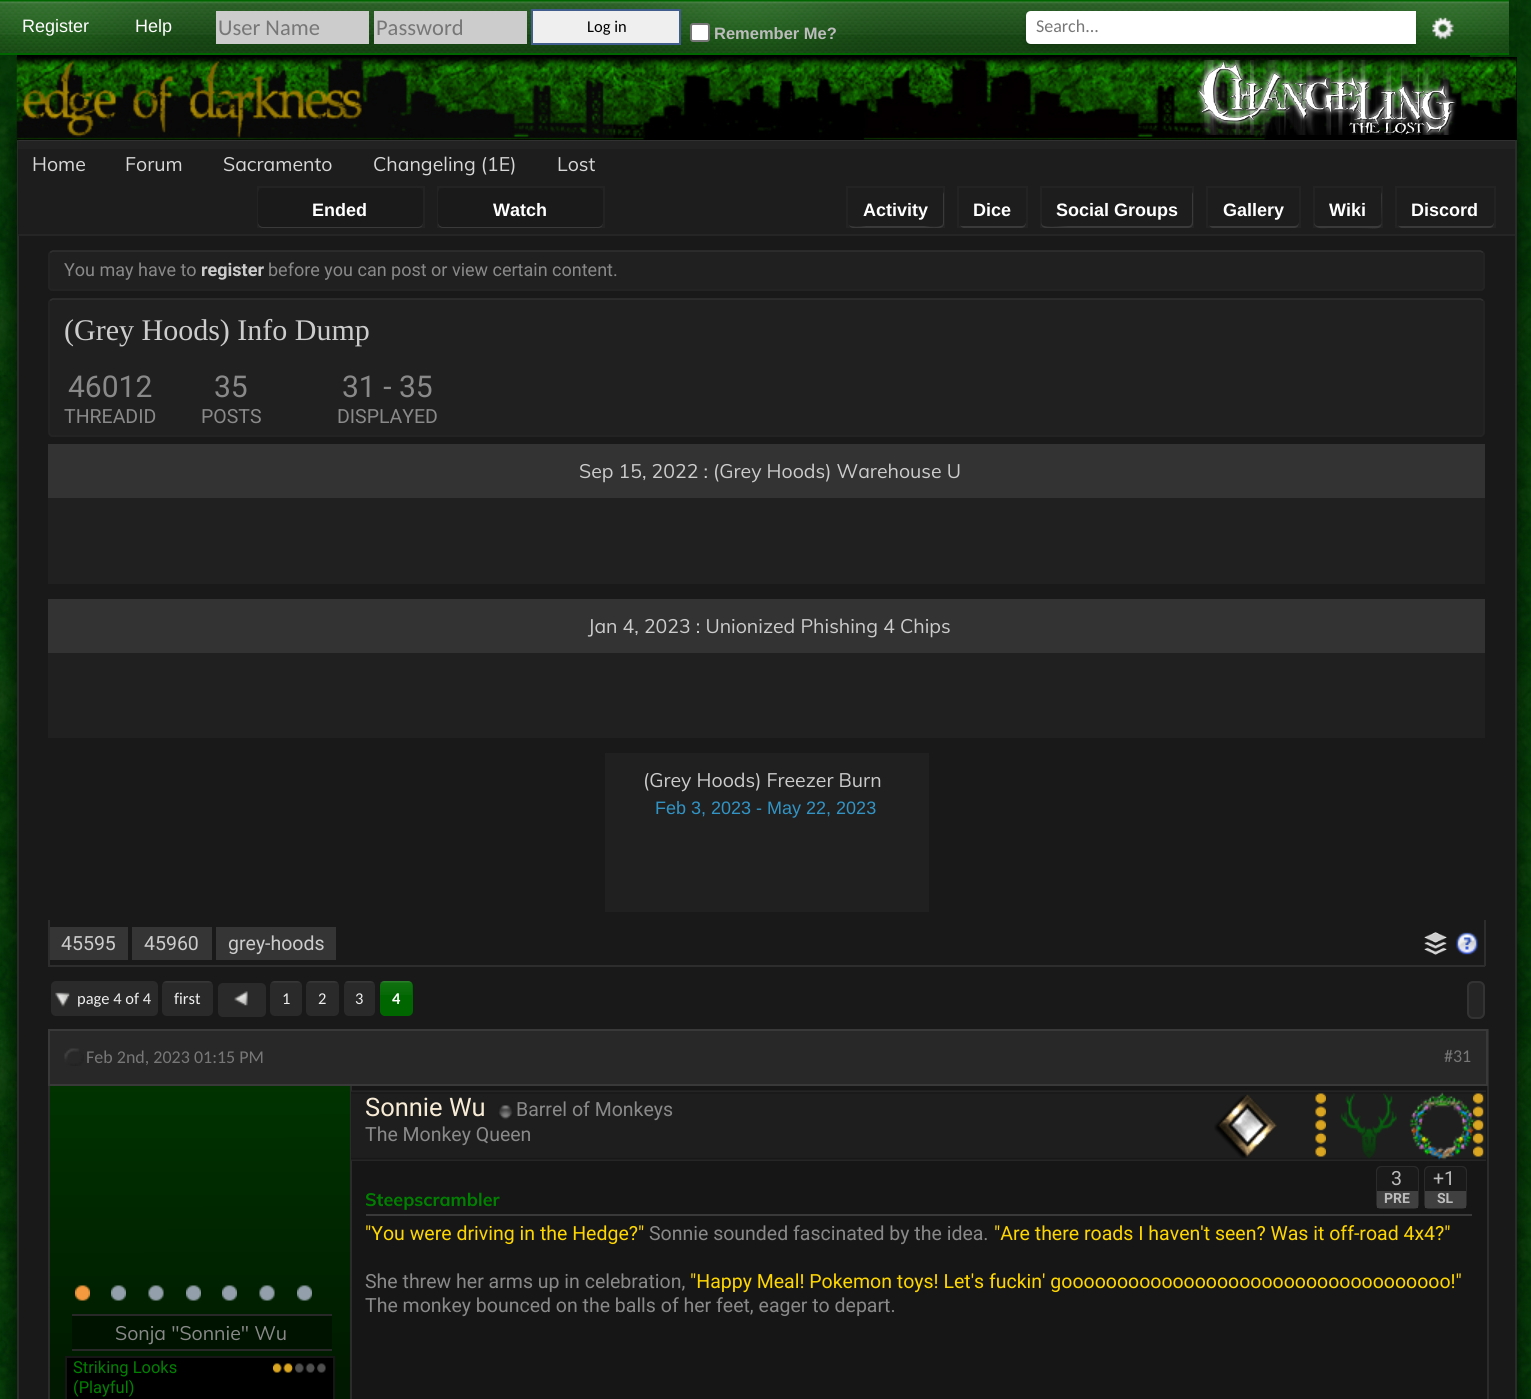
import math
import cairocffi as cairo

surface = cairo.ImageSurface(cairo.FORMAT_RGB24, 1531, 1399)
cr = cairo.Context(surface)
options = cairo.FontOptions()
options.set_hint_metrics(cairo.HINT_METRICS_OFF)
options.set_hint_style(cairo.HINT_STYLE_NONE)
cr.set_font_options(options)
cr.set_miter_limit(4)


def use_color(code):
    cr.set_source_rgb(*(v / 255 for v in bytes.fromhex(code[-6:])))


def round_rect(x, y, w, h, r):
    cr.new_sub_path()
    for i, (u, v) in enumerate([(x + w - r, y + h - r), (x + r, y + h - r), (x + r, y + r), (x + w - r, y + r)]):
        cr.arc(u, v, r, i * math.pi / 2, (i + 1) * math.pi / 2)
    cr.close_path()


def shadow(x, y, w, h, r, blur, alpha):
    cr.push_group_with_content(cairo.CONTENT_ALPHA)
    cr.set_operator(cairo.OPERATOR_SOURCE)
    for i in range(15, -16, -2):
        e = blur * i / 6
        if min(w, h) + 2 * e > 0:
            cr.set_source_rgba(0, 0, 0, alpha * math.erfc((i - 1) / 8.5) / 2)
            round_rect(x - e, y - e, w + 2 * e, h + 2 * e, max(0, min(r + e + blur * .6, min(w, h) / 2 + e)))
            cr.fill()
    cr.mask(cr.pop_group())


def picture(path, x, y, w, h):
    cr.save()
    cr.set_source_surface(cairo.ImageSurface.create_from_png(path), x, y)
    cr.rectangle(x, y, w, h)
    cr.fill()
    cr.restore()


use_color("#ffffff")
cr.paint()
picture("img1.png", 0, 0, 1531, 1399)
use_color("#000000")
cr.rectangle(17, 55, 1453, 2)
cr.fill()
use_color("#006600")
cr.rectangle(0, 0, 1509, 2)
cr.fill()
picture("img2.png", 0, 1, 1509, 52)
cr.rectangle(0, 53, 1509, 2)
cr.fill()
cr.select_font_face("Liberation Sans")
cr.set_font_size(18)
use_color("#ffffff")
cr.move_to(22, 32)
cr.show_text("Register")
cr.move_to(135, 32)
cr.show_text("Help")
use_color("#cccccc")
cr.rectangle(216, 11, 153, 33)
cr.fill()
cr.select_font_face("Carlito")
cr.set_font_size(22.5)
use_color("#777777")
cr.move_to(218, 35)
cr.show_text("User Name")
use_color("#cccccc")
cr.rectangle(374, 11, 153, 33)
cr.fill()
use_color("#777777")
cr.move_to(376, 35)
cr.show_text("Password")
use_color("#efefef")
cr.rectangle(532, 10, 148, 34)
cr.fill_preserve()
use_color("#415d8d")
cr.stroke()
cr.set_font_size(16.5)
use_color("#000000")
cr.move_to(587, 32)
cr.show_text("Log in")
use_color("#ffffff")
round_rect(691, 24, 18, 17, 2)
cr.fill_preserve()
use_color("#767676")
cr.stroke()
cr.select_font_face("Liberation Sans", cairo.FONT_SLANT_NORMAL, cairo.FONT_WEIGHT_BOLD)
use_color("#bcbcbc")
cr.move_to(714, 39)
cr.show_text("Remember Me?")
use_color("#000000")
shadow(1026, 14, 390, 33, 5, 3, 0.2)
use_color("#ffffff")
cr.new_path()
cr.move_to(1031, 11)
cr.line_to(1416, 11)
cr.line_to(1416, 44)
cr.line_to(1031, 44)
cr.curve_to(1028, 44, 1026, 42, 1026, 39)
cr.line_to(1026, 16)
cr.curve_to(1026, 13, 1028, 11, 1031, 11)
cr.close_path()
cr.fill()
cr.select_font_face("Carlito")
cr.set_font_size(18)
use_color("#777777")
cr.move_to(1036, 32)
cr.show_text("Search...")
picture("img3.png", 1432, 17, 22, 23)
use_color("#000000")
shadow(17, 140, 1500, 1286, 0, 9, 0.6)
use_color("#313131")
cr.rectangle(17, 140, 1500, 1)
cr.fill()
use_color("#2b2b2b")
cr.rectangle(17, 140, 2, 1259)
cr.fill()
use_color("#1d1d1d")
cr.rectangle(18, 149, 1497, 85)
cr.fill()
use_color("#343434")
cr.new_path()
cr.move_to(848, 224)
cr.curve_to(849, 226, 851, 228, 853, 228)
cr.line_to(939, 228)
cr.curve_to(942, 228, 944, 226, 944, 223)
cr.line_to(944, 194)
cr.line_to(943, 192)
cr.line_to(943, 223)
cr.curve_to(942, 230, 925, 226, 924, 226)
cr.line_to(866, 226)
cr.curve_to(866, 226, 851, 229, 848, 224)
cr.close_path()
cr.fill()
cr.rectangle(847, 187, 97, 40)
cr.set_source_rgba(1, 1, 1, 0.03)
cr.stroke()
cr.select_font_face("Liberation Sans", cairo.FONT_SLANT_NORMAL, cairo.FONT_WEIGHT_BOLD)
use_color("#ffffff")
cr.move_to(863, 216)
cr.show_text("Activity")
use_color("#343434")
cr.new_path()
cr.move_to(959, 224)
cr.curve_to(960, 226, 962, 228, 964, 228)
cr.line_to(1021, 228)
cr.curve_to(1024, 228, 1026, 226, 1026, 223)
cr.line_to(1026, 222)
cr.curve_to(1026, 224, 1024, 226, 1022, 226)
cr.line_to(963, 226)
cr.curve_to(961, 226, 960, 226, 959, 224)
cr.close_path()
cr.fill()
cr.rectangle(958, 187, 69, 40)
cr.set_source_rgba(1, 1, 1, 0.03)
cr.stroke()
use_color("#ffffff")
cr.move_to(973, 216)
cr.show_text("Dice")
use_color("#343434")
cr.new_path()
cr.move_to(1041, 222)
cr.line_to(1041, 223)
cr.curve_to(1041, 226, 1043, 228, 1046, 228)
cr.line_to(1188, 228)
cr.curve_to(1191, 228, 1193, 226, 1193, 223)
cr.line_to(1193, 194)
cr.line_to(1192, 192)
cr.line_to(1192, 217)
cr.curve_to(1192, 220, 1193, 226, 1188, 226)
cr.line_to(1069, 226)
cr.curve_to(1060, 226, 1041, 230, 1041, 222)
cr.close_path()
cr.fill()
cr.rectangle(1041, 187, 152, 40)
cr.set_source_rgba(1, 1, 1, 0.03)
cr.stroke()
use_color("#ffffff")
cr.move_to(1056, 216)
cr.show_text("Social Groups")
use_color("#343434")
cr.new_path()
cr.move_to(1208, 224)
cr.curve_to(1209, 226, 1211, 228, 1213, 228)
cr.line_to(1294, 228)
cr.curve_to(1297, 228, 1299, 226, 1299, 223)
cr.line_to(1299, 222)
cr.curve_to(1299, 224, 1297, 226, 1294, 226)
cr.line_to(1212, 226)
cr.curve_to(1210, 226, 1209, 226, 1208, 224)
cr.close_path()
cr.fill()
cr.rectangle(1207, 187, 93, 40)
cr.set_source_rgba(1, 1, 1, 0.03)
cr.stroke()
use_color("#ffffff")
cr.move_to(1223, 216)
cr.show_text("Gallery")
use_color("#343434")
cr.new_path()
cr.move_to(1314, 222)
cr.curve_to(1314, 230, 1323, 228, 1329, 228)
cr.line_to(1358, 228)
cr.curve_to(1384, 228, 1382, 233, 1382, 208)
cr.line_to(1382, 199)
cr.curve_to(1382, 197, 1382, 194, 1381, 192)
cr.line_to(1382, 222)
cr.curve_to(1382, 224, 1379, 226, 1377, 226)
cr.line_to(1318, 226)
cr.curve_to(1316, 226, 1314, 224, 1314, 222)
cr.close_path()
cr.fill()
cr.rectangle(1314, 187, 68, 40)
cr.set_source_rgba(1, 1, 1, 0.03)
cr.stroke()
use_color("#ffffff")
cr.move_to(1329, 216)
cr.show_text("Wiki")
use_color("#343434")
cr.new_path()
cr.move_to(1397, 224)
cr.curve_to(1398, 226, 1400, 228, 1402, 228)
cr.line_to(1489, 228)
cr.curve_to(1492, 228, 1494, 226, 1494, 223)
cr.line_to(1494, 222)
cr.curve_to(1494, 224, 1492, 226, 1490, 226)
cr.line_to(1401, 226)
cr.curve_to(1399, 226, 1398, 226, 1397, 224)
cr.close_path()
cr.fill()
cr.rectangle(1396, 187, 99, 40)
cr.set_source_rgba(1, 1, 1, 0.03)
cr.stroke()
use_color("#ffffff")
cr.move_to(1411, 216)
cr.show_text("Discord")
use_color("#000000")
cr.rectangle(17, 57, 1500, 83)
cr.fill()
picture("img4.png", 16, 57, 1501, 83)
picture("img5.png", 1197, 60, 260, 75)
use_color("#191919")
cr.rectangle(19, 236, 1496, 1163)
cr.fill()
use_color("#2b2b2b")
cr.rectangle(1515, 140, 2, 1259)
cr.fill()
use_color("#222222")
cr.rectangle(18, 141, 1497, 8)
cr.fill()
use_color("#252525")
cr.rectangle(18, 234, 1497, 2)
cr.fill()
cr.select_font_face("Muli")
cr.set_font_size(19.5)
use_color("#d7d7d7")
cr.move_to(32, 171)
cr.show_text("Home")
cr.move_to(125, 171)
cr.show_text("Forum")
cr.move_to(223, 171)
cr.show_text("Sacramento")
cr.move_to(373, 171)
cr.show_text("Changeling (1E)")
cr.move_to(557, 171)
cr.show_text("Lost")
use_color("#343434")
cr.new_path()
cr.move_to(258, 222)
cr.line_to(258, 223)
cr.curve_to(258, 226, 260, 228, 263, 228)
cr.line_to(418, 228)
cr.curve_to(421, 228, 423, 226, 423, 223)
cr.line_to(423, 222)
cr.curve_to(423, 224, 421, 226, 418, 226)
cr.line_to(262, 226)
cr.curve_to(260, 226, 258, 224, 258, 222)
cr.close_path()
cr.fill()
cr.rectangle(258, 187, 166, 40)
cr.set_source_rgba(1, 1, 1, 0.03)
cr.stroke()
use_color("#1a1a1a")
round_rect(258, 188, 165, 39, 5)
cr.fill()
cr.select_font_face("Liberation Sans", cairo.FONT_SLANT_NORMAL, cairo.FONT_WEIGHT_BOLD)
cr.set_font_size(18)
use_color("#ffffff")
cr.move_to(312, 216)
cr.show_text("Ended")
use_color("#343434")
cr.new_path()
cr.move_to(438, 222)
cr.line_to(438, 223)
cr.curve_to(438, 226, 440, 228, 443, 228)
cr.line_to(598, 228)
cr.curve_to(601, 228, 603, 226, 603, 223)
cr.line_to(603, 222)
cr.curve_to(603, 224, 601, 226, 598, 226)
cr.line_to(442, 226)
cr.curve_to(440, 226, 438, 224, 438, 222)
cr.close_path()
cr.fill()
cr.rectangle(438, 187, 166, 40)
cr.set_source_rgba(1, 1, 1, 0.03)
cr.stroke()
use_color("#1a1a1a")
round_rect(438, 188, 165, 39, 5)
cr.fill()
use_color("#ffffff")
cr.move_to(493, 216)
cr.show_text("Watch")
use_color("#202020")
round_rect(48, 251, 1437, 40, 5)
cr.fill()
cr.new_path()
cr.move_to(50, 252.5)
cr.line_to(52.5, 251)
cr.line_to(1480.5, 251)
cr.line_to(1483, 252.5)
use_color("#303030")
cr.set_line_width(1.5)
cr.stroke()
cr.new_path()
cr.move_to(1483, 252.5)
cr.curve_to(1484, 253, 1484, 254, 1484, 255)
cr.line_to(1484, 286.5)
cr.curve_to(1484, 287.5, 1484, 288.5, 1483, 289)
cr.curve_to(1482.5, 290, 1481.5, 290, 1480.5, 290)
cr.line_to(52.5, 290)
cr.curve_to(51.5, 290, 50.5, 290, 50, 289)
cr.curve_to(49, 288.5, 49, 287.5, 49, 286.5)
cr.line_to(49, 255)
cr.curve_to(49, 254, 49, 253, 50, 252.5)
use_color("#242424")
cr.stroke()
cr.select_font_face("Roboto")
use_color("#898989")
cr.move_to(64, 276)
cr.show_text("You may have to")
cr.select_font_face("Roboto", cairo.FONT_SLANT_NORMAL, cairo.FONT_WEIGHT_BOLD)
use_color("#cccccc")
cr.move_to(201, 276)
cr.show_text("register")
cr.select_font_face("Roboto")
use_color("#898989")
cr.move_to(268, 276)
cr.show_text("before you can post or view certain content.")
use_color("#202020")
round_rect(48, 299, 1437, 138, 5)
cr.fill()
cr.new_path()
cr.move_to(50, 300.5)
cr.line_to(52.5, 299)
cr.line_to(1480.5, 299)
cr.line_to(1483, 300.5)
use_color("#303030")
cr.stroke()
cr.new_path()
cr.move_to(1483, 300.5)
cr.curve_to(1484, 301, 1484, 302, 1484, 303)
cr.line_to(1484, 432)
cr.curve_to(1484, 433, 1484, 434, 1483, 434.5)
cr.curve_to(1482.5, 435.5, 1481.5, 436, 1480.5, 436)
cr.line_to(52.5, 436)
cr.curve_to(51.5, 436, 50.5, 435.5, 50, 434.5)
cr.curve_to(49, 434, 49, 433, 49, 432)
cr.line_to(49, 303)
cr.curve_to(49, 302, 49, 301, 50, 300.5)
use_color("#242424")
cr.stroke()
cr.select_font_face("Liberation Serif")
cr.set_font_size(30)
use_color("#cccccc")
cr.move_to(64, 340)
cr.show_text("(Grey Hoods) Info Dump")
cr.select_font_face("Roboto")
use_color("#898989")
cr.move_to(68, 397)
cr.show_text("46012")
cr.set_font_size(19.5)
cr.move_to(64, 423)
cr.show_text("THREADID")
cr.set_font_size(30)
cr.move_to(214, 397)
cr.show_text("35")
cr.set_font_size(19.5)
cr.move_to(201, 423)
cr.show_text("POSTS")
cr.set_font_size(30)
cr.move_to(342, 397)
cr.show_text("31 - 35")
cr.set_font_size(19.5)
cr.move_to(337, 423)
cr.show_text("DISPLAYED")
use_color("#202020")
cr.rectangle(48, 498, 1437, 86)
cr.fill()
use_color("#333333")
cr.rectangle(48, 444, 1437, 54)
cr.fill()
cr.select_font_face("Muli")
use_color("#cccccc")
cr.move_to(579, 478)
cr.show_text("Sep 15, 2022 : (Grey Hoods) Warehouse U")
use_color("#202020")
cr.rectangle(48, 653, 1437, 85)
cr.fill()
use_color("#333333")
cr.rectangle(48, 599, 1437, 54)
cr.fill()
use_color("#cccccc")
cr.move_to(588, 633)
cr.show_text("Jan 4, 2023 : Unionized Phishing 4 Chips")
use_color("#202020")
cr.rectangle(605, 753, 324, 159)
cr.fill()
use_color("#cccccc")
cr.move_to(643, 787)
cr.show_text("(Grey Hoods) Freezer Burn")
cr.select_font_face("Liberation Sans")
cr.set_font_size(18)
use_color("#3194c5")
cr.move_to(655, 814)
cr.show_text("Feb 3, 2023 - May 22, 2023")
use_color("#2d2d2d")
cr.rectangle(1484, 920, 2, 46)
cr.fill()
cr.rectangle(48, 965, 1437, 2)
cr.fill()
cr.rectangle(48, 920, 2, 46)
cr.fill()
use_color("#353535")
cr.rectangle(50, 927, 78, 33)
cr.fill()
cr.select_font_face("Roboto")
cr.set_font_size(19.5)
use_color("#cccccc")
cr.move_to(61, 950)
cr.show_text("45595")
use_color("#353535")
cr.rectangle(132, 927, 80, 33)
cr.fill()
use_color("#cccccc")
cr.move_to(144, 950)
cr.show_text("45960")
use_color("#353535")
cr.rectangle(216, 927, 120, 33)
cr.fill()
use_color("#cccccc")
cr.move_to(228, 950)
cr.show_text("grey-hoods")
picture("img6.png", 1424, 932, 23, 23)
picture("img7.png", 1456, 932, 22, 23)
use_color("#2a2a2a")
round_rect(51, 981, 107, 35, 5)
cr.fill()
picture("img8.png", 55, 992, 15, 15)
cr.select_font_face("Carlito")
cr.set_font_size(16.5)
use_color("#eeeeee")
cr.move_to(77, 1004)
cr.show_text("page 4 of 4")
use_color("#2a2a2a")
round_rect(162, 981, 51, 35, 5)
cr.fill()
picture("img9.png", 163, 981, 49, 2)
use_color("#eeeeee")
cr.move_to(174, 1004)
cr.show_text("first")
use_color("#2a2a2a")
round_rect(218, 983, 48, 34, 5)
cr.fill()
picture("img10.png", 234, 991, 14, 15)
round_rect(270, 981, 32, 35, 5)
cr.fill()
picture("img11.png", 271, 981, 29, 2)
use_color("#eeeeee")
cr.move_to(282, 1004)
cr.show_text("1")
use_color("#2a2a2a")
round_rect(306, 981, 33, 35, 5)
cr.fill()
picture("img12.png", 307, 981, 31, 2)
use_color("#eeeeee")
cr.move_to(318, 1004)
cr.show_text("2")
use_color("#2a2a2a")
round_rect(344, 981, 31, 35, 5)
cr.fill()
picture("img13.png", 345, 981, 29, 2)
use_color("#eeeeee")
cr.move_to(355, 1004)
cr.show_text("3")
use_color("#006600")
round_rect(380, 981, 33, 35, 5)
cr.fill()
picture("img14.png", 380, 981, 32, 14)
cr.select_font_face("Carlito", cairo.FONT_SLANT_NORMAL, cairo.FONT_WEIGHT_BOLD)
use_color("#ffffff")
cr.move_to(392, 1004)
cr.show_text("4")
use_color("#252525")
round_rect(1468, 982, 16, 36, 5)
cr.fill_preserve()
use_color("#333333")
cr.set_line_width(2)
cr.stroke()
use_color("#2b2b2b")
cr.rectangle(1487, 1029, 2, 370)
cr.fill()
cr.rectangle(48, 1086, 2, 313)
cr.fill()
use_color("#282828")
cr.rectangle(49, 1030, 1438, 55)
cr.fill_preserve()
use_color("#393939")
cr.stroke()
picture("img15.png", 64, 1048, 20, 18)
cr.select_font_face("Carlito")
cr.set_font_size(18)
use_color("#777777")
cr.move_to(86, 1063)
cr.show_text("Feb 2nd, 2023 01:15 PM")
cr.move_to(1444, 1062)
cr.show_text("#31")
use_color("#161616")
cr.rectangle(352, 1086, 1135, 313)
cr.fill()
use_color("#2b2b2b")
cr.rectangle(350, 1086, 2, 313)
cr.fill()
picture("img16.png", 351, 1090, 1135, 71)
cr.select_font_face("Roboto")
cr.set_font_size(25.5)
use_color("#f8ebd5")
cr.move_to(365, 1116)
cr.show_text("Sonnie Wu")
picture("img17.png", 498, 1105, 15, 15)
cr.set_font_size(19.5)
use_color("#898989")
cr.move_to(516, 1116)
cr.show_text("Barrel of Monkeys")
cr.move_to(365, 1141)
cr.show_text("The Monkey Queen")
picture("img18.png", 1214, 1094, 63, 64)
picture("img19.png", 1315, 1093, 11, 64)
picture("img20.png", 1340, 1093, 57, 66)
picture("img21.png", 1409, 1092, 67, 68)
picture("img22.png", 1473, 1093, 11, 64)
use_color("#393939")
cr.rectangle(366, 1214, 1106, 2)
cr.fill()
cr.select_font_face("Muli", cairo.FONT_SLANT_NORMAL, cairo.FONT_WEIGHT_BOLD)
cr.set_font_size(18)
use_color("#008000")
cr.move_to(365, 1206)
cr.show_text("Steepscrambler")
round_rect(1377, 1167, 41, 41, 4)
use_color("#2b2b2b")
cr.stroke()
use_color("#1a1a1a")
cr.new_path()
cr.move_to(1382, 1167)
cr.line_to(1413, 1167)
cr.curve_to(1416, 1167, 1418, 1169, 1418, 1172)
cr.line_to(1418, 1191)
cr.line_to(1377, 1191)
cr.line_to(1377, 1172)
cr.curve_to(1377, 1169, 1379, 1167, 1382, 1167)
cr.close_path()
cr.fill()
cr.select_font_face("Roboto")
cr.set_font_size(19.5)
use_color("#bcbcbc")
cr.move_to(1391, 1185)
cr.show_text("3")
use_color("#404040")
cr.rectangle(1377, 1191, 41, 17)
cr.fill()
cr.select_font_face("Roboto", cairo.FONT_SLANT_NORMAL, cairo.FONT_WEIGHT_BOLD)
cr.set_font_size(14)
use_color("#bcbcbc")
cr.move_to(1384, 1203)
cr.show_text("PRE")
round_rect(1425, 1167, 41, 41, 4)
use_color("#2b2b2b")
cr.stroke()
use_color("#1a1a1a")
cr.new_path()
cr.move_to(1430, 1167)
cr.line_to(1461, 1167)
cr.curve_to(1464, 1167, 1466, 1169, 1466, 1172)
cr.line_to(1466, 1191)
cr.line_to(1425, 1191)
cr.line_to(1425, 1172)
cr.curve_to(1425, 1169, 1427, 1167, 1430, 1167)
cr.close_path()
cr.fill()
cr.select_font_face("Roboto")
cr.set_font_size(19.5)
use_color("#bcbcbc")
cr.move_to(1433, 1185)
cr.show_text("+1")
use_color("#404040")
cr.rectangle(1425, 1191, 41, 17)
cr.fill()
cr.select_font_face("Roboto", cairo.FONT_SLANT_NORMAL, cairo.FONT_WEIGHT_BOLD)
cr.set_font_size(14)
use_color("#bcbcbc")
cr.move_to(1437, 1203)
cr.show_text("SL")
cr.select_font_face("Roboto")
cr.set_font_size(19.5)
use_color("#ffd700")
cr.move_to(365, 1240)
cr.show_text("\"You were driving in the Hedge?\"")
use_color("#898989")
cr.move_to(649, 1240)
cr.show_text("Sonnie sounded fascinated by the idea.")
use_color("#ffd700")
cr.move_to(994, 1240)
cr.show_text("\"Are there roads I haven't seen? Was it off-road 4x4?\"")
use_color("#898989")
cr.move_to(365, 1288)
cr.show_text("She threw her arms up in celebration,")
use_color("#ffd700")
cr.move_to(690, 1288)
cr.show_text("\"Happy Meal! Pokemon toys! Let's fuckin' gooooooooooooooooooooooooooooooooooo!\"")
use_color("#898989")
cr.move_to(365, 1312)
cr.show_text("The monkey bounced on the balls of her feet, eager to depart.")
gradient = cairo.LinearGradient(199, 1086, 200, 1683)
gradient.add_color_stop_rgba(0, 0, 0.2, 0, 1)
gradient.add_color_stop_rgba(0.5, 0, 0.098, 0, 1)
gradient.add_color_stop_rgba(1, 0.086, 0.086, 0.086, 1)
cr.set_source(gradient)
cr.rectangle(50, 1086, 300, 313)
cr.fill()
picture("img23.png", 75, 1285, 15, 16)
picture("img24.png", 111, 1285, 15, 16)
picture("img25.png", 148, 1285, 16, 16)
picture("img26.png", 186, 1285, 15, 16)
picture("img26.png", 222, 1285, 15, 16)
picture("img25.png", 259, 1285, 16, 16)
picture("img27.png", 297, 1285, 15, 16)
use_color("#001300")
cr.rectangle(72, 1316, 260, 33)
cr.fill()
use_color("#282828")
cr.rectangle(72, 1314, 260, 2)
cr.fill()
cr.rectangle(72, 1349, 260, 2)
cr.fill()
cr.select_font_face("Muli")
use_color("#898989")
cr.move_to(115, 1340)
cr.show_text("Sonja \"Sonnie\" Wu")
use_color("#000000")
cr.rectangle(66, 1357, 268, 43)
cr.fill_preserve()
use_color("#161616")
cr.stroke()
cr.select_font_face("Roboto")
cr.set_font_size(16.5)
use_color("#008000")
cr.move_to(73, 1373)
cr.show_text("Striking Looks")
picture("img28.png", 273, 1363, 53, 10)
cr.move_to(73, 1393)
cr.show_text("(Playful)")
surface.write_to_png("result.png")
